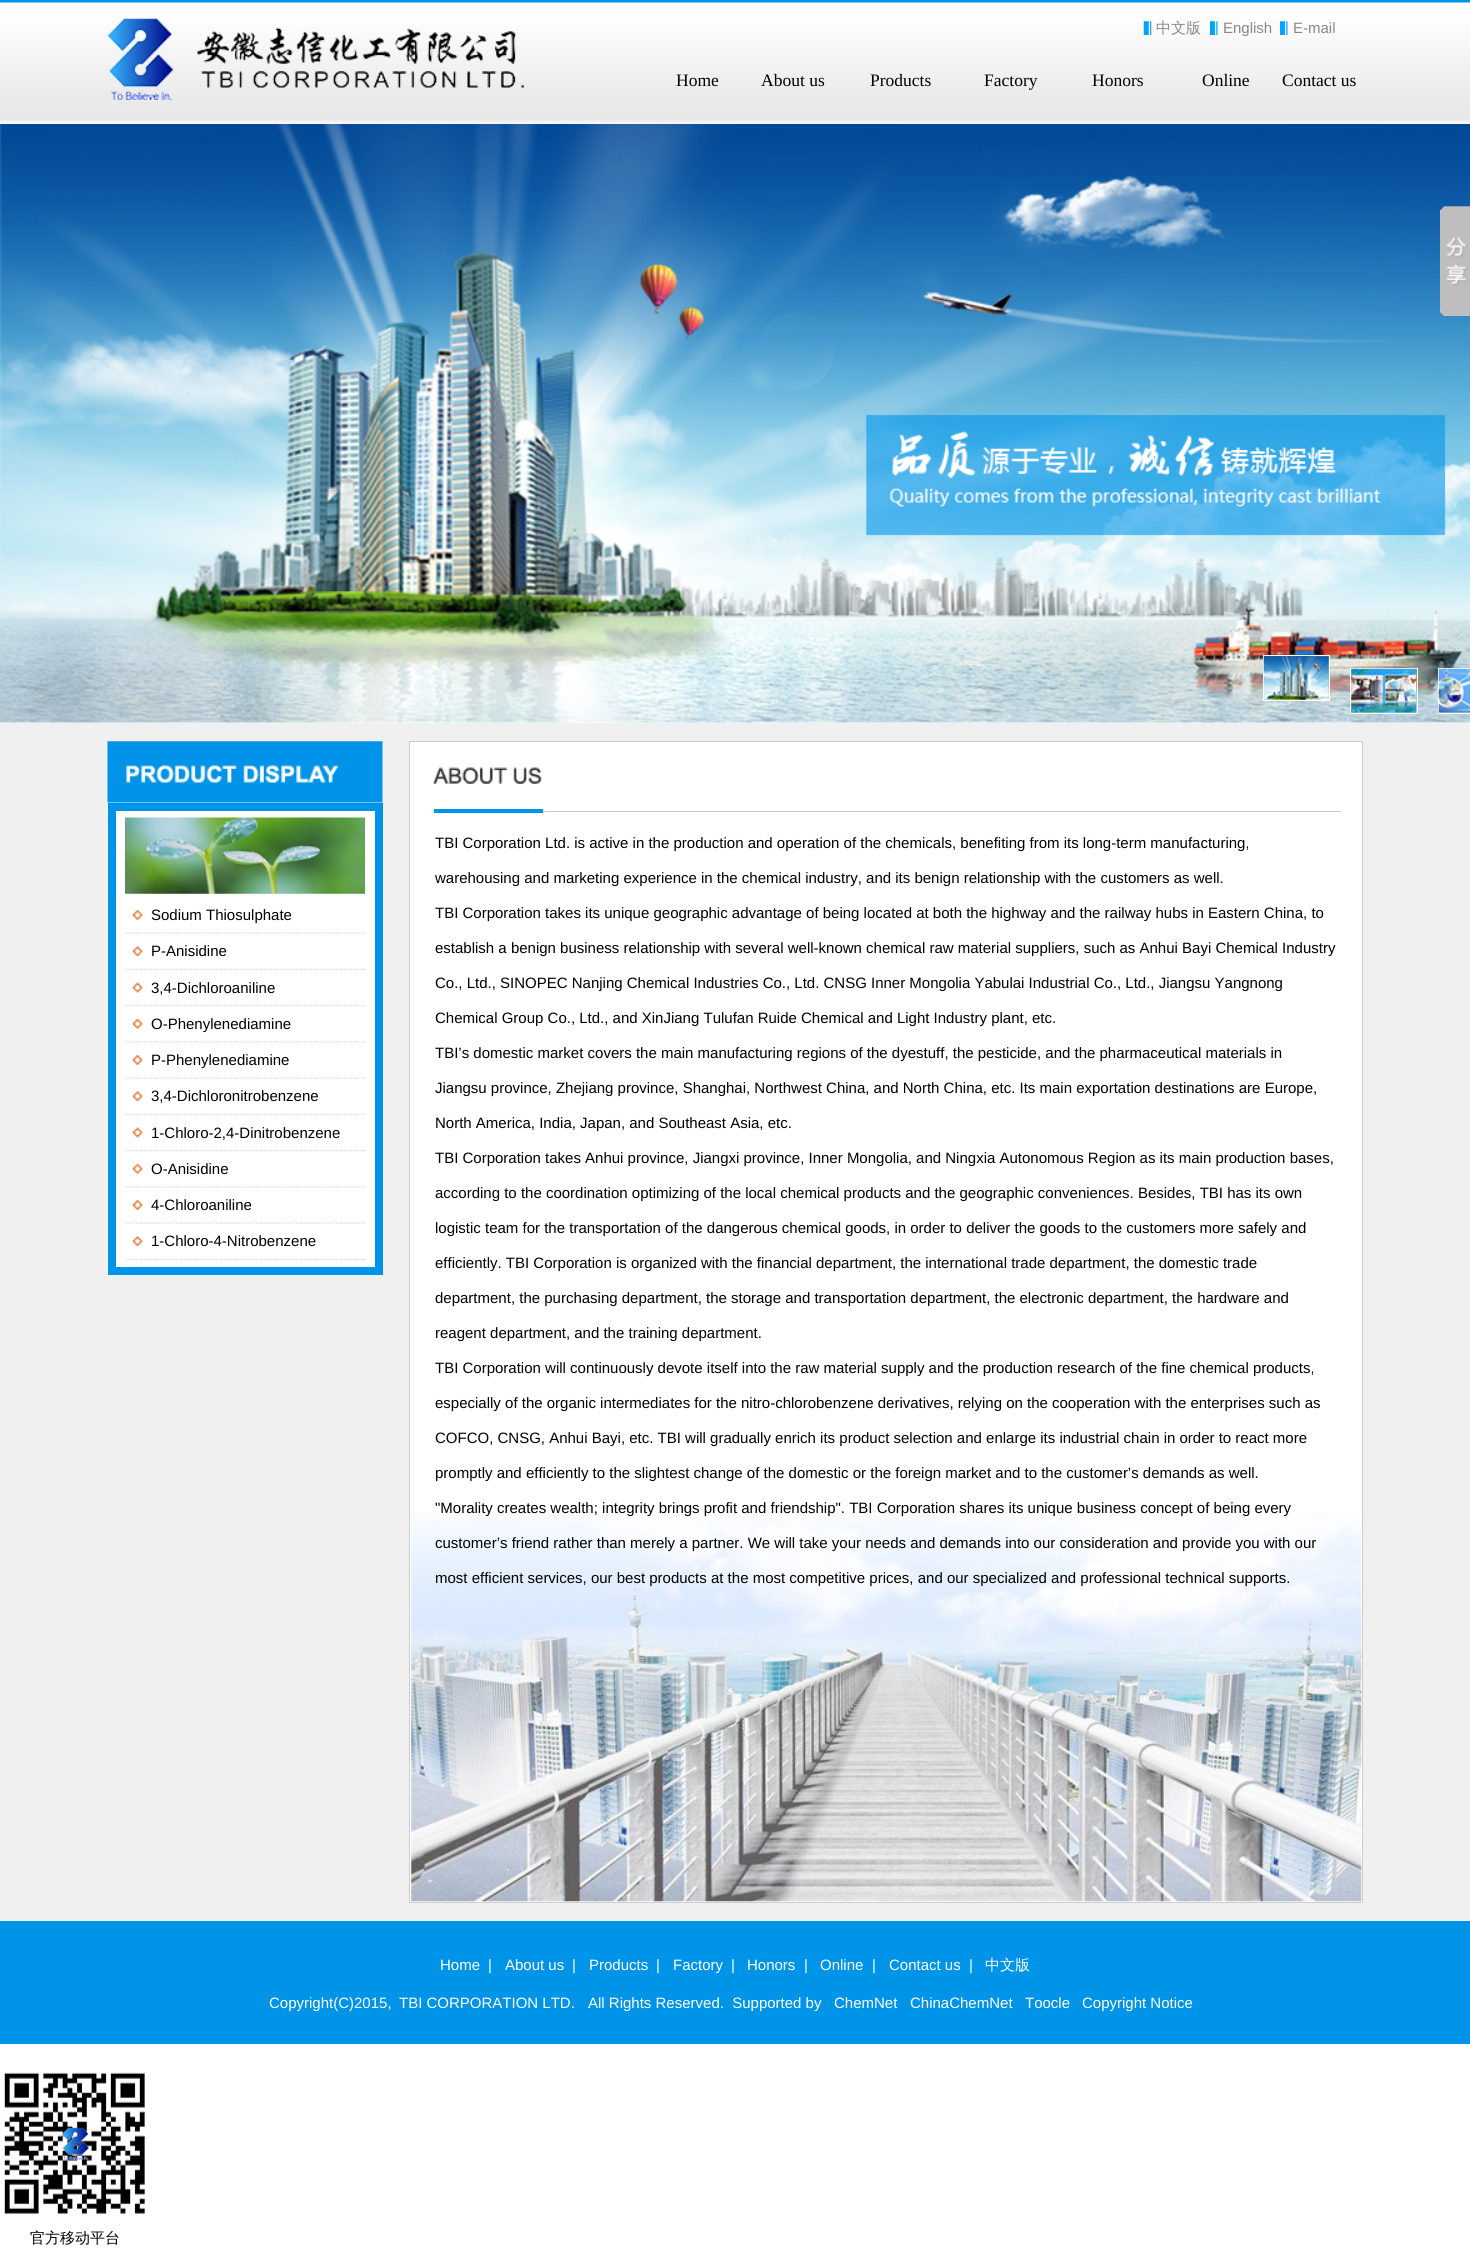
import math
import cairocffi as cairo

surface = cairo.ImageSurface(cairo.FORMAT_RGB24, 1470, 2256)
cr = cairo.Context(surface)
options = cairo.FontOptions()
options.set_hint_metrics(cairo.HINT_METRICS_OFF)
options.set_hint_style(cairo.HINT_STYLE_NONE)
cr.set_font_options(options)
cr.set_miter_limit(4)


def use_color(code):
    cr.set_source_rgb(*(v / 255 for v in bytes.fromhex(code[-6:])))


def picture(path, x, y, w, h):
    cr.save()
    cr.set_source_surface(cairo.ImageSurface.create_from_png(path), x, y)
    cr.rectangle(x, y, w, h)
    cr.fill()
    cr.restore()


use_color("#ffffff")
cr.paint()
picture("img1.png", 0, 0, 1470, 123)
picture("img2.png", 107, 18, 417, 82)
picture("img3.png", 1143, 21, 9, 14)
cr.select_font_face("WenQuanYi Zen Hei Medium")
cr.set_font_size(15)
use_color("#888888")
cr.move_to(1156, 33)
cr.show_text("中文版")
picture("img4.png", 1210, 21, 8, 14)
cr.select_font_face("Liberation Sans")
cr.move_to(1223, 33)
cr.show_text("English")
picture("img4.png", 1280, 21, 8, 14)
cr.move_to(1293, 33)
cr.show_text("E-mail")
cr.select_font_face("Liberation Serif")
cr.set_font_size(17.5)
use_color("#000000")
cr.move_to(676, 86)
cr.show_text("Home")
cr.move_to(761, 86)
cr.show_text("About us")
cr.move_to(870, 86)
cr.show_text("Products")
cr.move_to(984, 86)
cr.show_text("Factory")
cr.move_to(1092, 86)
cr.show_text("Honors")
cr.move_to(1202, 86)
cr.show_text("Online")
cr.move_to(1282, 86)
cr.show_text("Contact us")
picture("img5.png", 0, 123, 1470, 600)
cr.rectangle(1263.5, 655.5, 66, 45)
use_color("#ffffff")
cr.set_line_width(1)
cr.stroke()
picture("img6.png", 1263, 656, 66, 44)
cr.rectangle(1350.5, 668.5, 67, 45)
cr.stroke()
picture("img7.png", 1351, 668, 66, 45)
cr.rectangle(1438.5, 668.5, 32, 45)
cr.stroke()
picture("img8.png", 1438, 668, 32, 45)
picture("img9.png", 1440, 206, 30, 110)
use_color("#f1f0f0")
cr.rectangle(0, 723, 1470, 1198)
cr.fill()
picture("img10.png", 107, 741, 276, 62)
use_color("#ffffff")
cr.rectangle(112, 807, 267, 464)
cr.fill_preserve()
use_color("#0094e9")
cr.set_line_width(8)
cr.stroke()
picture("img11.png", 125, 817, 240, 77)
picture("img12.png", 132, 910, 11, 10)
cr.new_path()
cr.move_to(126, 933)
cr.line_to(366, 933)
use_color("#d5d5d5")
cr.set_line_width(1.2)
cr.set_dash([1.25, 1.25])
cr.stroke()
cr.select_font_face("Liberation Sans")
cr.set_font_size(15)
use_color("#000000")
cr.move_to(151, 920)
cr.show_text("Sodium Thiosulphate")
picture("img13.png", 132, 946, 11, 11)
cr.new_path()
cr.move_to(126, 969.5)
cr.line_to(366, 969.5)
use_color("#d5d5d5")
cr.stroke()
use_color("#000000")
cr.move_to(151, 956)
cr.show_text("P-Anisidine")
picture("img14.png", 132, 982, 11, 11)
cr.new_path()
cr.move_to(126, 1005.5)
cr.line_to(366, 1005.5)
use_color("#d5d5d5")
cr.stroke()
use_color("#000000")
cr.move_to(151, 993)
cr.show_text("3,4-Dichloroaniline")
picture("img15.png", 132, 1018, 11, 11)
cr.new_path()
cr.move_to(126, 1042)
cr.line_to(366, 1042)
use_color("#d5d5d5")
cr.stroke()
use_color("#000000")
cr.move_to(151, 1029)
cr.show_text("O-Phenylenediamine")
picture("img12.png", 132, 1055, 11, 10)
cr.new_path()
cr.move_to(126, 1078)
cr.line_to(366, 1078)
use_color("#d5d5d5")
cr.stroke()
use_color("#000000")
cr.move_to(151, 1065)
cr.show_text("P-Phenylenediamine")
picture("img13.png", 132, 1091, 11, 11)
cr.new_path()
cr.move_to(126, 1114.5)
cr.line_to(366, 1114.5)
use_color("#d5d5d5")
cr.stroke()
use_color("#000000")
cr.move_to(151, 1101)
cr.show_text("3,4-Dichloronitrobenzene")
picture("img14.png", 132, 1127, 11, 11)
cr.new_path()
cr.move_to(126, 1150.5)
cr.line_to(366, 1150.5)
use_color("#d5d5d5")
cr.stroke()
use_color("#000000")
cr.move_to(151, 1138)
cr.show_text("1-Chloro-2,4-Dinitrobenzene")
picture("img15.png", 132, 1163, 11, 11)
cr.new_path()
cr.move_to(126, 1187)
cr.line_to(366, 1187)
use_color("#d5d5d5")
cr.stroke()
use_color("#000000")
cr.move_to(151, 1174)
cr.show_text("O-Anisidine")
picture("img12.png", 132, 1200, 11, 10)
cr.new_path()
cr.move_to(126, 1223)
cr.line_to(366, 1223)
use_color("#d5d5d5")
cr.stroke()
use_color("#000000")
cr.move_to(151, 1210)
cr.show_text("4-Chloroaniline")
picture("img13.png", 132, 1236, 11, 11)
cr.new_path()
cr.move_to(126, 1259.5)
cr.line_to(366, 1259.5)
use_color("#d5d5d5")
cr.stroke()
use_color("#000000")
cr.move_to(151, 1246)
cr.show_text("1-Chloro-4-Nitrobenzene")
use_color("#ffffff")
cr.rectangle(409.5, 741.5, 953, 1161)
cr.fill_preserve()
use_color("#cccccc")
cr.set_line_width(1)
cr.set_dash([])
cr.stroke()
cr.rectangle(543, 811, 798, 1)
cr.fill()
use_color("#0094e9")
cr.rectangle(434, 809, 109, 4)
cr.fill()
picture("img16.png", 433, 767, 109, 17)
picture("img17.png", 411, 1512, 951, 390)
use_color("#000000")
cr.move_to(435, 848)
cr.show_text("TBI Corporation Ltd. is active in the production and operation of the chemicals, benefiting from its long-term manufacturing,")
cr.move_to(435, 883)
cr.show_text("warehousing and marketing experience in the chemical industry, and its benign relationship with the customers as well.")
cr.move_to(435, 918)
cr.show_text("TBI Corporation takes its unique geographic advantage of being located at both the highway and the railway hubs in Eastern China, to")
cr.move_to(435, 953)
cr.show_text("establish a benign business relationship with several well-known chemical raw material suppliers, such as Anhui Bayi Chemical Industry")
cr.move_to(435, 988)
cr.show_text("Co., Ltd., SINOPEC Nanjing Chemical Industries Co., Ltd. CNSG Inner Mongolia Yabulai Industrial Co., Ltd., Jiangsu Yangnong")
cr.move_to(435, 1023)
cr.show_text("Chemical Group Co., Ltd., and XinJiang Tulufan Ruide Chemical and Light Industry plant, etc.")
cr.move_to(435, 1058)
cr.show_text("TBI’s domestic market covers the main manufacturing regions of the dyestuff, the pesticide, and the pharmaceutical materials in")
cr.move_to(435, 1093)
cr.show_text("Jiangsu province, Zhejiang province, Shanghai, Northwest China, and North China, etc. Its main exportation destinations are Europe,")
cr.move_to(435, 1128)
cr.show_text("North America, India, Japan, and Southeast Asia, etc.")
cr.move_to(435, 1163)
cr.show_text("TBI Corporation takes Anhui province, Jiangxi province, Inner Mongolia, and Ningxia Autonomous Region as its main production bases,")
cr.move_to(435, 1198)
cr.show_text("according to the coordination optimizing of the local chemical products and the geographic conveniences. Besides, TBI has its own")
cr.move_to(435, 1233)
cr.show_text("logistic team for the transportation of the dangerous chemical goods, in order to deliver the goods to the customers more safely and")
cr.move_to(435, 1268)
cr.show_text("efficiently. TBI Corporation is organized with the financial department, the international trade department, the domestic trade")
cr.move_to(435, 1303)
cr.show_text("department, the purchasing department, the storage and transportation department, the electronic department, the hardware and")
cr.move_to(435, 1338)
cr.show_text("reagent department, and the training department.")
cr.move_to(435, 1373)
cr.show_text("TBI Corporation will continuously devote itself into the raw material supply and the production research of the fine chemical products,")
cr.move_to(435, 1408)
cr.show_text("especially of the organic intermediates for the nitro-chlorobenzene derivatives, relying on the cooperation with the enterprises such as")
cr.move_to(435, 1443)
cr.show_text("COFCO, CNSG, Anhui Bayi, etc. TBI will gradually enrich its product selection and enlarge its industrial chain in order to react more")
cr.move_to(435, 1478)
cr.show_text("promptly and efficiently to the slightest change of the domestic or the foreign market and to the customer’s demands as well.")
cr.move_to(435, 1513)
cr.show_text("\"Morality creates wealth; integrity brings profit and friendship\". TBI Corporation shares its unique business concept of being every")
cr.move_to(435, 1548)
cr.show_text("customer’s friend rather than merely a partner. We will take your needs and demands into our consideration and provide you with our")
cr.move_to(435, 1583)
cr.show_text("most efficient services, our best products at the most competitive prices, and our specialized and professional technical supports.")
use_color("#0094e9")
cr.rectangle(0, 1921, 1470, 123)
cr.fill()
use_color("#ffffff")
cr.move_to(440, 1970)
cr.show_text("Home")
cr.move_to(488, 1970)
cr.show_text("|")
cr.move_to(505, 1970)
cr.show_text("About us")
cr.move_to(572, 1970)
cr.show_text("|")
cr.move_to(589, 1970)
cr.show_text("Products")
cr.move_to(656, 1970)
cr.show_text("|")
cr.move_to(673, 1970)
cr.show_text("Factory")
cr.move_to(731, 1970)
cr.show_text("|")
cr.move_to(747, 1970)
cr.show_text("Honors")
cr.move_to(804, 1970)
cr.show_text("|")
cr.move_to(820, 1970)
cr.show_text("Online")
cr.move_to(872, 1970)
cr.show_text("|")
cr.move_to(889, 1970)
cr.show_text("Contact us")
cr.move_to(969, 1970)
cr.show_text("|")
cr.select_font_face("WenQuanYi Zen Hei Medium")
cr.move_to(985, 1970)
cr.show_text("中文版")
cr.select_font_face("Liberation Sans")
cr.move_to(269, 2008)
cr.show_text("Copyright(C)2015,")
cr.move_to(399, 2008)
cr.show_text("TBI CORPORATION LTD.")
cr.move_to(588, 2008)
cr.show_text("All Rights Reserved.  Supported by")
cr.move_to(834, 2008)
cr.show_text("ChemNet")
cr.move_to(910, 2008)
cr.show_text("ChinaChemNet")
cr.move_to(1025, 2008)
cr.show_text("Toocle")
cr.move_to(1082, 2008)
cr.show_text("Copyright Notice")
picture("img18.png", 1, 2072, 144, 142)
cr.select_font_face("WenQuanYi Zen Hei Medium")
use_color("#000000")
cr.move_to(30, 2243)
cr.show_text("官方移动平台")
surface.write_to_png("result.png")
